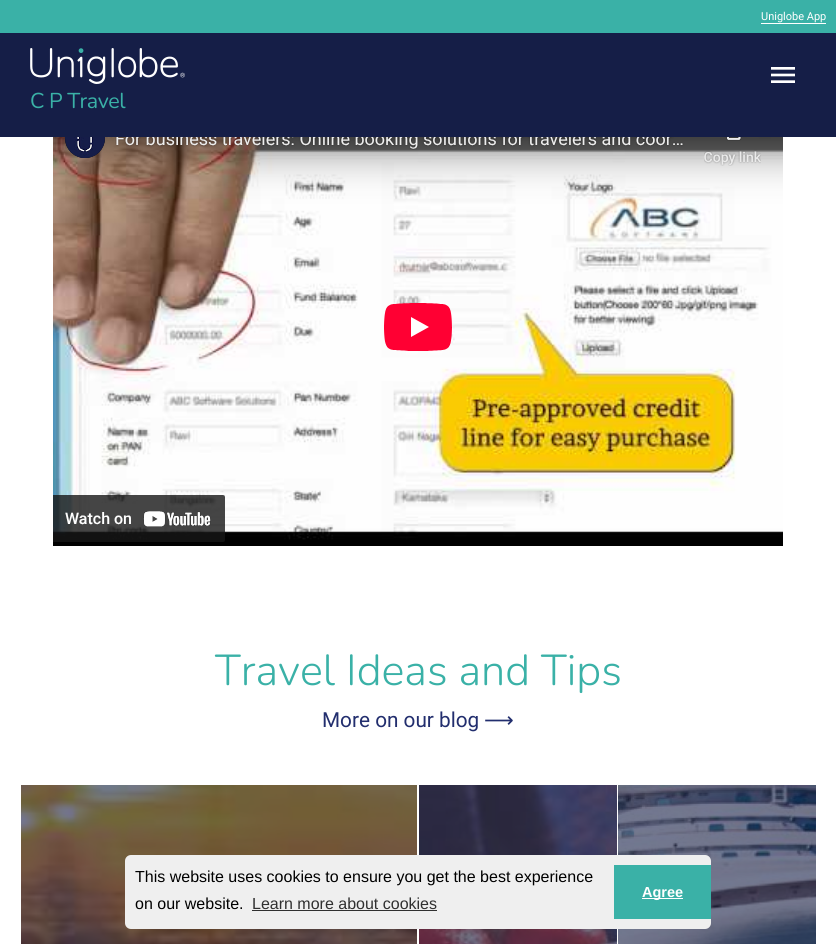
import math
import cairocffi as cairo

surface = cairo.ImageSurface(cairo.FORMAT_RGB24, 836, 944)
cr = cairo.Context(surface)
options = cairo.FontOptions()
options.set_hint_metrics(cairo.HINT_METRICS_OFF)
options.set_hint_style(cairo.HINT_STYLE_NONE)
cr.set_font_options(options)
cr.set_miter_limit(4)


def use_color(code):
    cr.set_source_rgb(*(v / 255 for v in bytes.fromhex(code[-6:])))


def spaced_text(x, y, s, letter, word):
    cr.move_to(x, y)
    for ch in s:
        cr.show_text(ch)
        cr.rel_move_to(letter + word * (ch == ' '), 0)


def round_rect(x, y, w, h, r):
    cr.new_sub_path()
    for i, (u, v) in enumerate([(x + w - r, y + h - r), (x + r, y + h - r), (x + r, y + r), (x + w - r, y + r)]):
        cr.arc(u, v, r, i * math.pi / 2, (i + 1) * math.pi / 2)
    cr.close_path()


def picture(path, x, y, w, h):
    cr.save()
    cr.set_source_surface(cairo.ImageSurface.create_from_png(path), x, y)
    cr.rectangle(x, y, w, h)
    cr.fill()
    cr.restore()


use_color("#ffffff")
cr.paint()
use_color("#3ab1a7")
cr.rectangle(0, 0, 836, 33)
cr.fill()
cr.select_font_face("Roboto")
cr.set_font_size(11)
use_color("#ffffff")
cr.move_to(761, 20)
cr.show_text("Uniglobe App")
cr.rectangle(761, 23, 65, 1)
cr.fill()
use_color("#151e47")
cr.rectangle(0, 33, 836, 104)
cr.fill()
picture("img1.png", 771, 67, 24, 16)
picture("img2.png", 30, 48, 155, 36)
cr.select_font_face("Nunito")
cr.set_font_size(21.5)
use_color("#3ab1a7")
spaced_text(30, 108, "C P Travel", -0.5, 0)
picture("img3.png", 53, 137, 730, 409)
cr.select_font_face("Nunito Light")
cr.set_font_size(43.25)
cr.move_to(215, 685)
cr.show_text("Travel Ideas and Tips")
cr.select_font_face("Roboto")
cr.set_font_size(20.75)
use_color("#222e6e")
cr.move_to(322, 727)
cr.show_text("More on our blog")
cr.select_font_face("DejaVu Sans")
cr.move_to(484, 727)
cr.show_text("⟶")
picture("img4.png", 21, 785, 396, 159)
picture("img5.png", 419, 785, 198, 159)
picture("img6.png", 618, 785, 198, 159)
use_color("#efefef")
round_rect(125, 855, 586, 74, 6)
cr.fill()
cr.select_font_face("Liberation Sans")
cr.set_font_size(16)
use_color("#000000")
cr.move_to(135, 882)
cr.show_text("This website uses cookies to ensure you get the best experience")
cr.move_to(135, 909)
cr.show_text("on our website.")
use_color("#303030")
cr.move_to(252, 909)
cr.show_text("Learn more about cookies")
cr.rectangle(252, 910, 185, 1)
cr.fill()
use_color("#3ab1a7")
cr.rectangle(614, 865, 97, 54)
cr.fill()
use_color("#ffffff")
cr.rectangle(642, 898, 41, 1)
cr.fill()
cr.select_font_face("Liberation Sans", cairo.FONT_SLANT_NORMAL, cairo.FONT_WEIGHT_BOLD)
cr.set_font_size(14.5)
cr.move_to(642, 897)
cr.show_text("Agree")
surface.write_to_png("result.png")
